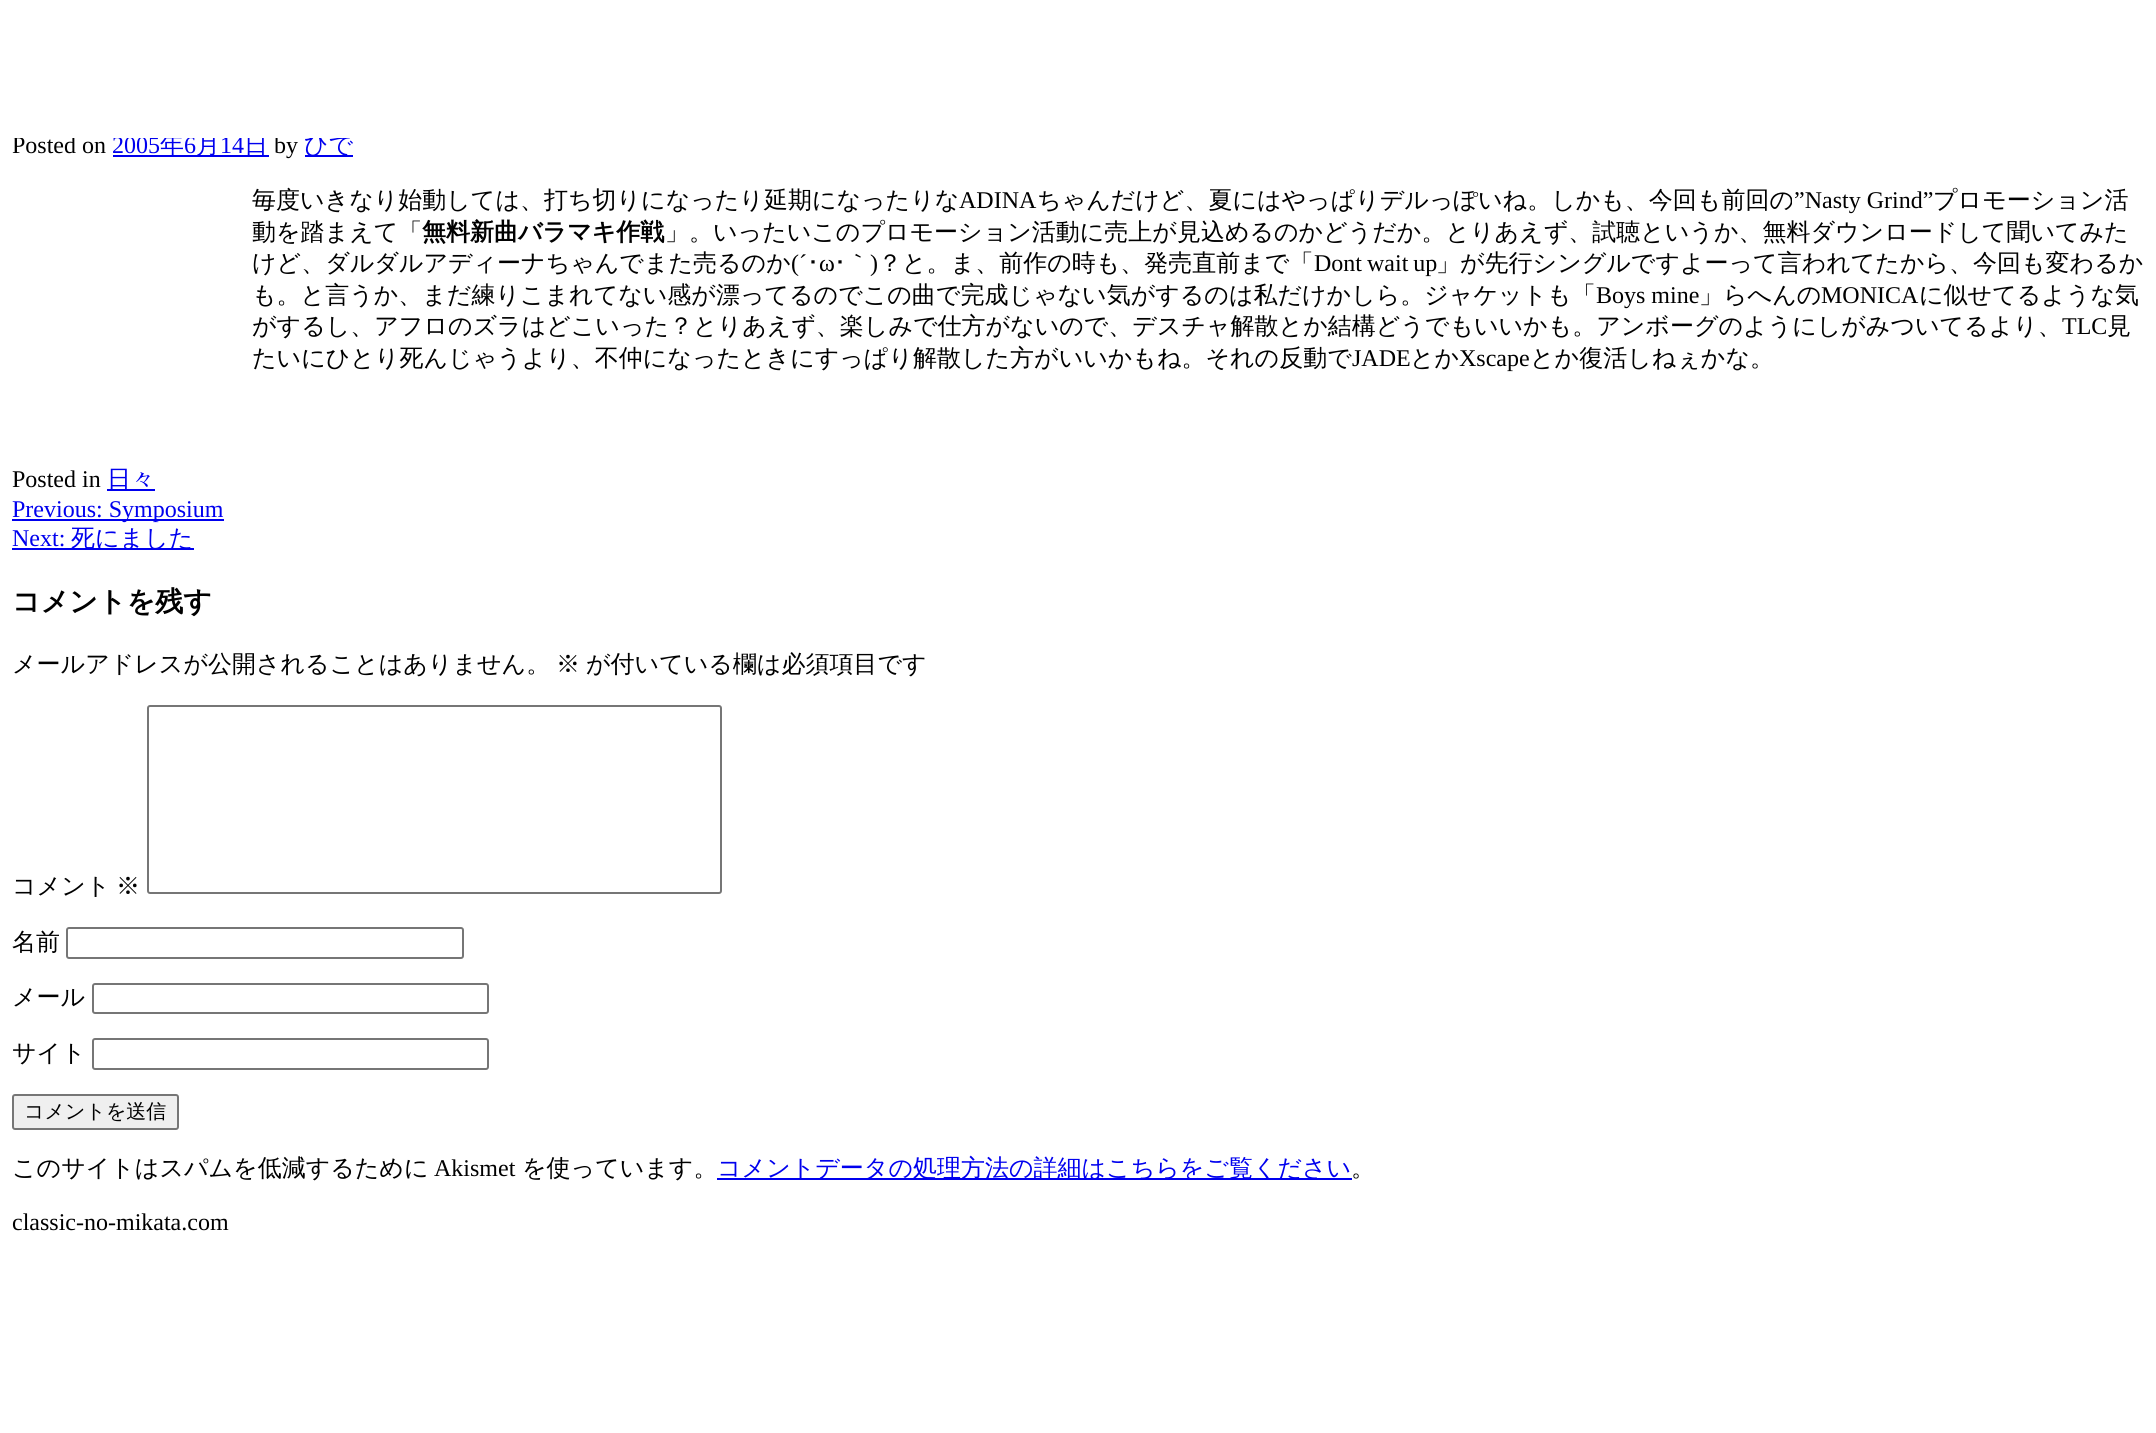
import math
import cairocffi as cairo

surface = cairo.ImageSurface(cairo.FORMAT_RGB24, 2156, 1433)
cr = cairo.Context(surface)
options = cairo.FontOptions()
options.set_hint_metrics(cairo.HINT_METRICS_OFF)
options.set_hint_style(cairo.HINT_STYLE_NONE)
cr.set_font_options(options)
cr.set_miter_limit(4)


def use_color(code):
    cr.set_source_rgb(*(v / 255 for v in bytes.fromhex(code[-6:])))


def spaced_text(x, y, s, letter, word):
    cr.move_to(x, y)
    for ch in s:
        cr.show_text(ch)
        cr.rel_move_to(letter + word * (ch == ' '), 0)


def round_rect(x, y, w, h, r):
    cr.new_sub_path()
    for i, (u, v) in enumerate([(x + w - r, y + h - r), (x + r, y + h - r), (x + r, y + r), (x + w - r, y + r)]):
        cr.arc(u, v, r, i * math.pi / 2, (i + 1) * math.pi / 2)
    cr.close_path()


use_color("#ffffff")
cr.paint()
cr.select_font_face("Liberation Serif")
cr.set_font_size(24)
use_color("#000000")
cr.move_to(12, 153)
cr.show_text("Posted on")
use_color("#0000ee")
cr.move_to(112, 153)
cr.show_text("2005")
cr.rectangle(113, 155, 156, 2)
cr.fill()
cr.select_font_face("WenQuanYi Zen Hei Medium")
cr.move_to(160, 153)
cr.show_text("年")
cr.select_font_face("Liberation Serif")
cr.move_to(184, 153)
cr.show_text("6")
cr.select_font_face("WenQuanYi Zen Hei Medium")
cr.move_to(196, 153)
cr.show_text("月")
cr.select_font_face("Liberation Serif")
cr.move_to(220, 153)
cr.show_text("14")
cr.select_font_face("WenQuanYi Zen Hei Medium")
cr.move_to(244, 153)
cr.show_text("日")
cr.select_font_face("Liberation Serif")
use_color("#000000")
cr.move_to(274, 153)
cr.show_text("by")
use_color("#0000ee")
cr.rectangle(305, 155, 48, 2)
cr.fill()
cr.select_font_face("WenQuanYi Zen Hei Medium")
cr.move_to(304, 153)
cr.show_text("ひで")
use_color("#000000")
cr.move_to(252, 208)
cr.show_text("毎度いきなり始動しては、打ち切りになったり延期になったりな")
cr.select_font_face("Liberation Serif")
cr.move_to(959, 208)
cr.show_text("ADINA")
cr.select_font_face("WenQuanYi Zen Hei Medium")
cr.move_to(1037, 208)
cr.show_text("ちゃんだけど、夏にはやっぱりデルっぽいね。しかも、今回も前回の")
cr.select_font_face("Liberation Serif")
cr.move_to(1794, 208)
cr.show_text("”Nasty Grind”")
cr.select_font_face("WenQuanYi Zen Hei Medium")
cr.move_to(1933, 208)
cr.show_text("プロモーション活")
cr.move_to(252, 240)
cr.show_text("動を踏まえて「")
cr.select_font_face("WenQuanYi Zen Hei", cairo.FONT_SLANT_NORMAL, cairo.FONT_WEIGHT_BOLD)
cr.move_to(422, 240)
cr.show_text("無料新曲バラマキ作戦")
cr.select_font_face("WenQuanYi Zen Hei Medium")
cr.move_to(665, 240)
cr.show_text("」。いったいこのプロモーション活動に売上が見込めるのかどうだか。とりあえず、試聴というか、無料ダウンロードして聞いてみた")
cr.move_to(252, 271)
cr.show_text("けど、ダルダルアディーナちゃんでまた売るのか")
cr.select_font_face("Liberation Serif")
cr.move_to(791, 271)
cr.show_text("(´")
cr.select_font_face("IPAPGothic")
cr.move_to(807, 271)
cr.show_text("･")
cr.select_font_face("Liberation Serif")
cr.move_to(819, 271)
cr.show_text("ω")
cr.select_font_face("IPAPGothic")
cr.move_to(834, 271)
cr.show_text("･")
cr.select_font_face("WenQuanYi Zen Hei Medium")
cr.move_to(846, 271)
cr.show_text("｀")
cr.select_font_face("Liberation Serif")
cr.move_to(870, 271)
cr.show_text(")")
cr.select_font_face("WenQuanYi Zen Hei Medium")
cr.move_to(878, 271)
cr.show_text("？と。ま、前作の時も、発売直前まで「")
cr.select_font_face("Liberation Serif")
spaced_text(1314, 271, "Dont wait up", 0, -1)
cr.select_font_face("WenQuanYi Zen Hei Medium")
cr.move_to(1436, 271)
cr.show_text("」が先行シングルですよーって言われてたから、今回も変わるか")
cr.move_to(252, 303)
cr.show_text("も。と言うか、まだ練りこまれてない感が漂ってるのでこの曲で完成じゃない気がするのは私だけかしら。ジャケットも「")
cr.select_font_face("Liberation Serif")
cr.move_to(1596, 303)
cr.show_text("Boys mine")
cr.select_font_face("WenQuanYi Zen Hei Medium")
cr.move_to(1699, 303)
cr.show_text("」らへんの")
cr.select_font_face("Liberation Serif")
cr.move_to(1821, 303)
cr.show_text("MONICA")
cr.select_font_face("WenQuanYi Zen Hei Medium")
cr.move_to(1919, 303)
cr.show_text("に似せてるような気")
cr.move_to(252, 334)
cr.show_text("がするし、アフロのズラはどこいった？とりあえず、楽しみで仕方がないので、デスチャ解散とか結構どうでもいいかも。アンボーグのようにしがみついてるより、")
cr.select_font_face("Liberation Serif")
cr.move_to(2062, 334)
cr.show_text("TLC")
cr.select_font_face("WenQuanYi Zen Hei Medium")
cr.move_to(2107, 334)
cr.show_text("見")
cr.move_to(252, 366)
cr.show_text("たいにひとり死んじゃうより、不仲になったときにすっぱり解散した方がいいかもね。それの反動で")
cr.select_font_face("Liberation Serif")
cr.move_to(1352, 366)
cr.show_text("JADE")
cr.select_font_face("WenQuanYi Zen Hei Medium")
cr.move_to(1410, 366)
cr.show_text("とか")
cr.select_font_face("Liberation Serif")
cr.move_to(1459, 366)
cr.show_text("Xscape")
cr.select_font_face("WenQuanYi Zen Hei Medium")
cr.move_to(1530, 366)
cr.show_text("とか復活しねぇかな。")
cr.select_font_face("Liberation Serif")
cr.move_to(12, 487)
cr.show_text("Posted in")
use_color("#0000ee")
cr.rectangle(107, 489, 48, 2)
cr.fill()
cr.select_font_face("WenQuanYi Zen Hei Medium")
cr.move_to(107, 487)
cr.show_text("日々")
cr.rectangle(12, 519, 212, 2)
cr.fill()
cr.select_font_face("Liberation Serif")
cr.move_to(12, 517)
cr.show_text("Previous: Symposium")
cr.move_to(12, 546)
cr.show_text("Next:")
cr.rectangle(12, 548, 182, 2)
cr.fill()
cr.select_font_face("WenQuanYi Zen Hei Medium")
cr.move_to(71, 546)
cr.show_text("死にました")
cr.select_font_face("WenQuanYi Zen Hei", cairo.FONT_SLANT_NORMAL, cairo.FONT_WEIGHT_BOLD)
cr.set_font_size(28)
use_color("#000000")
cr.move_to(12, 611)
cr.show_text("コメントを残す")
cr.select_font_face("WenQuanYi Zen Hei Medium")
cr.set_font_size(24)
cr.move_to(12, 672)
cr.show_text("メールアドレスが公開されることはありません。")
cr.move_to(556, 672)
cr.show_text("※")
cr.move_to(586, 672)
cr.show_text("が付いている欄は必須項目です")
cr.move_to(12, 894)
cr.show_text("コメント")
cr.move_to(116, 894)
cr.show_text("※")
round_rect(148, 706, 573, 187, 2)
use_color("#767676")
cr.stroke()
use_color("#000000")
cr.move_to(12, 950)
cr.show_text("名前")
round_rect(67, 928, 396, 30, 2)
use_color("#767676")
cr.stroke()
use_color("#000000")
cr.move_to(12, 1005)
cr.show_text("メール")
round_rect(93, 984, 395, 29, 2)
use_color("#767676")
cr.stroke()
use_color("#000000")
cr.move_to(12, 1061)
cr.show_text("サイト")
round_rect(93, 1039, 395, 30, 2)
use_color("#767676")
cr.stroke()
use_color("#efefef")
round_rect(13, 1095, 165, 34, 2)
cr.fill_preserve()
use_color("#767676")
cr.stroke()
cr.set_font_size(20)
use_color("#000000")
cr.move_to(24, 1118)
cr.show_text("コメントを送信")
cr.set_font_size(24)
cr.move_to(12, 1176)
cr.show_text("このサイトはスパムを低減するために")
cr.select_font_face("Liberation Serif")
cr.move_to(434, 1176)
cr.show_text("Akismet")
cr.select_font_face("WenQuanYi Zen Hei Medium")
cr.move_to(522, 1176)
cr.show_text("を使っています。")
use_color("#0000ee")
cr.rectangle(717, 1178, 635, 2)
cr.fill()
cr.move_to(717, 1176)
cr.show_text("コメントデータの処理方法の詳細はこちらをご覧ください")
use_color("#000000")
cr.move_to(1351, 1176)
cr.show_text("。")
use_color("#ffffff")
cr.rectangle(12, 133, 338, 5)
cr.fill()
cr.select_font_face("Liberation Serif")
use_color("#000000")
cr.move_to(12, 1230)
cr.show_text("classic-no-mikata.com")
surface.write_to_png("result.png")
